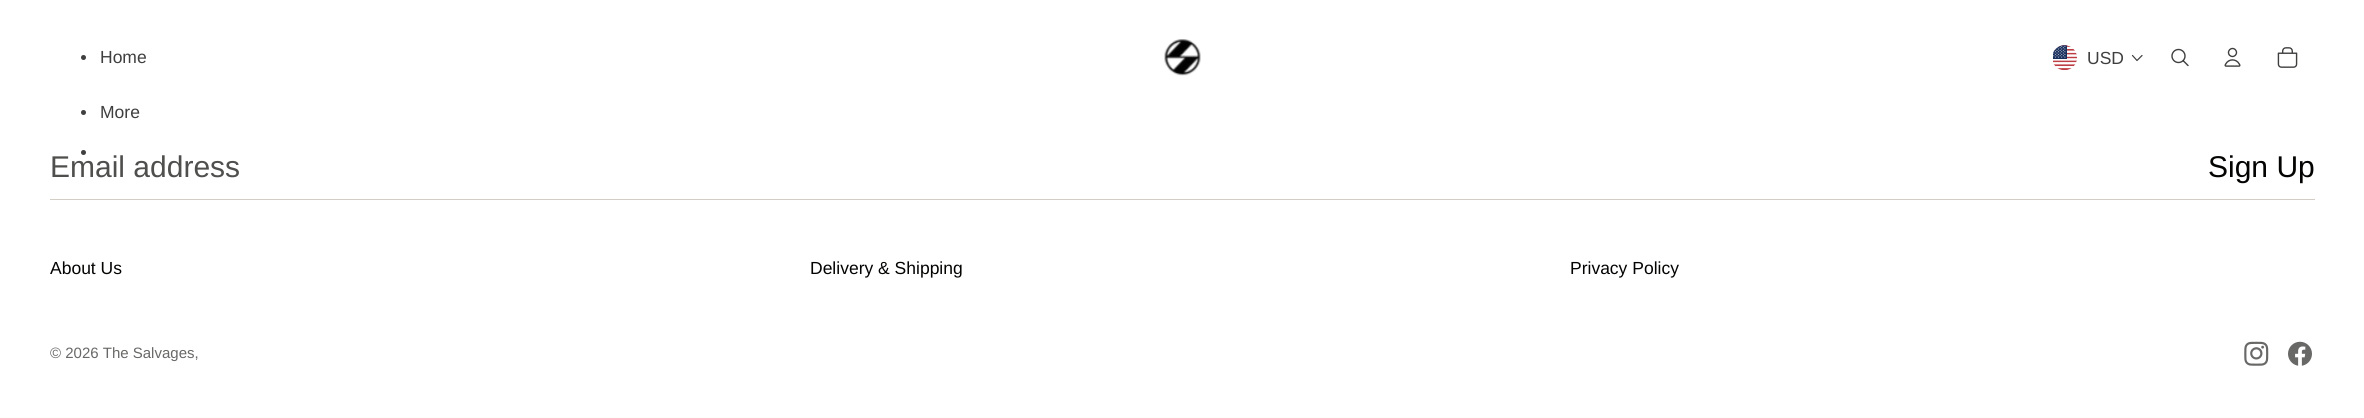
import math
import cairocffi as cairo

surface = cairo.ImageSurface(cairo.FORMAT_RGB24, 2364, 418)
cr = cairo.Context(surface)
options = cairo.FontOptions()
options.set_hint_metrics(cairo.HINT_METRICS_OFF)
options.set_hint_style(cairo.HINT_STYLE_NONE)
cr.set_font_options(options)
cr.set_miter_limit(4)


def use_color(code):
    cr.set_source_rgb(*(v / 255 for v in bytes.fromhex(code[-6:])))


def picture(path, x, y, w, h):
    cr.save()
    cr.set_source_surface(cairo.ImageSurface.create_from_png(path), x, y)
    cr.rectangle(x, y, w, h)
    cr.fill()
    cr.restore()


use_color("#ffffff")
cr.paint()
use_color("#3f3f3f")
cr.arc(83.5, 57.5, 2.5, 0, 2 * math.pi)
cr.fill()
cr.select_font_face("Liberation Sans")
cr.set_font_size(17.5)
cr.move_to(100, 63)
cr.show_text("Home")
cr.new_path()
cr.arc(83.5, 112.5, 2.5, 0, 2 * math.pi)
cr.fill()
cr.move_to(100, 118)
cr.show_text("More")
cr.new_path()
cr.arc(83.5, 152.5, 2.5, 0, 2 * math.pi)
cr.fill()
picture("img1.png", 1164, 39, 37, 37)
picture("img2.png", 2053, 45, 24, 25)
cr.move_to(2087, 64)
cr.show_text("USD")
cr.new_path()
cr.move_to(2142, 55.5)
cr.line_to(2137, 60.5)
cr.line_to(2132.5, 55.5)
cr.set_line_width(1.2)
cr.set_line_cap(cairo.LINE_CAP_ROUND)
cr.set_line_join(cairo.LINE_JOIN_ROUND)
cr.stroke()
cr.arc(2178.5, 56, 6.5, 0, 2 * math.pi)
cr.set_line_width(1.4)
cr.set_line_cap(cairo.LINE_CAP_BUTT)
cr.set_line_join(cairo.LINE_JOIN_MITER)
cr.stroke()
cr.new_path()
cr.move_to(2183.5, 61)
cr.line_to(2188, 65.5)
cr.set_source_rgba(0.012, 0.012, 0.008, 0.76)
cr.set_line_cap(cairo.LINE_CAP_ROUND)
cr.set_line_join(cairo.LINE_JOIN_ROUND)
cr.stroke()
picture("img3.png", 2224, 47, 17, 20)
picture("img4.png", 2277, 47, 21, 21)
use_color("#d3cec5")
cr.rectangle(50, 199, 2265, 1)
cr.fill()
cr.set_font_size(30)
use_color("#4f4f4e")
cr.move_to(50, 177)
cr.show_text("Email address")
use_color("#030302")
cr.move_to(2208, 177)
cr.show_text("Sign Up")
cr.set_font_size(17.5)
cr.move_to(50, 274)
cr.show_text("About Us")
cr.move_to(810, 274)
cr.show_text("Delivery & Shipping")
cr.move_to(1570, 274)
cr.show_text("Privacy Policy")
cr.set_font_size(15)
use_color("#686867")
cr.move_to(50, 358)
cr.show_text("© 2026 The Salvages,")
picture("img5.png", 2244, 341, 25, 25)
picture("img6.png", 2288, 341, 24, 25)
surface.write_to_png("result.png")
